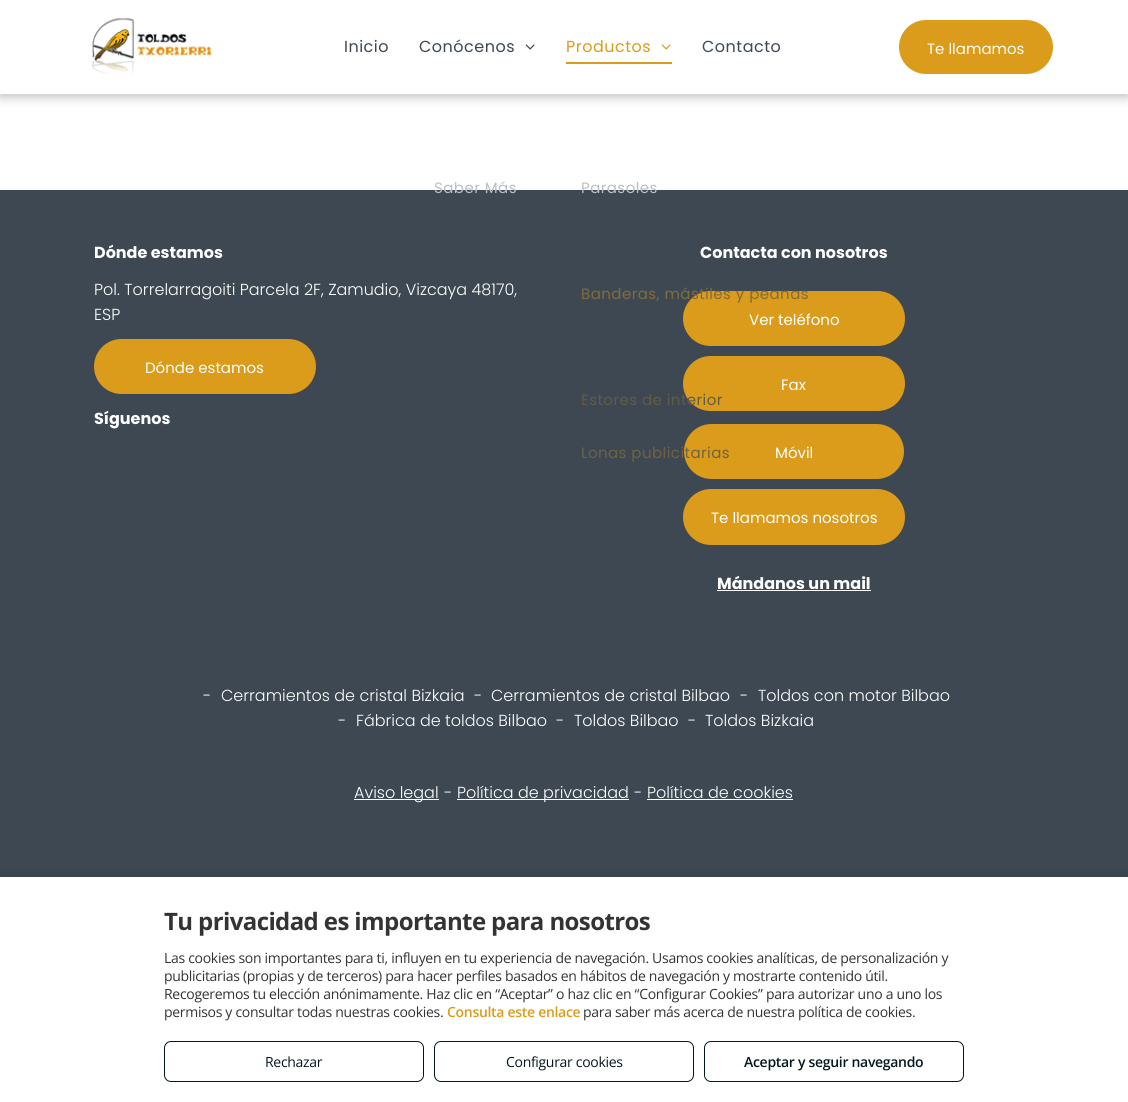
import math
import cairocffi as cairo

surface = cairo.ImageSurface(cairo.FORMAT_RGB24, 1128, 1102)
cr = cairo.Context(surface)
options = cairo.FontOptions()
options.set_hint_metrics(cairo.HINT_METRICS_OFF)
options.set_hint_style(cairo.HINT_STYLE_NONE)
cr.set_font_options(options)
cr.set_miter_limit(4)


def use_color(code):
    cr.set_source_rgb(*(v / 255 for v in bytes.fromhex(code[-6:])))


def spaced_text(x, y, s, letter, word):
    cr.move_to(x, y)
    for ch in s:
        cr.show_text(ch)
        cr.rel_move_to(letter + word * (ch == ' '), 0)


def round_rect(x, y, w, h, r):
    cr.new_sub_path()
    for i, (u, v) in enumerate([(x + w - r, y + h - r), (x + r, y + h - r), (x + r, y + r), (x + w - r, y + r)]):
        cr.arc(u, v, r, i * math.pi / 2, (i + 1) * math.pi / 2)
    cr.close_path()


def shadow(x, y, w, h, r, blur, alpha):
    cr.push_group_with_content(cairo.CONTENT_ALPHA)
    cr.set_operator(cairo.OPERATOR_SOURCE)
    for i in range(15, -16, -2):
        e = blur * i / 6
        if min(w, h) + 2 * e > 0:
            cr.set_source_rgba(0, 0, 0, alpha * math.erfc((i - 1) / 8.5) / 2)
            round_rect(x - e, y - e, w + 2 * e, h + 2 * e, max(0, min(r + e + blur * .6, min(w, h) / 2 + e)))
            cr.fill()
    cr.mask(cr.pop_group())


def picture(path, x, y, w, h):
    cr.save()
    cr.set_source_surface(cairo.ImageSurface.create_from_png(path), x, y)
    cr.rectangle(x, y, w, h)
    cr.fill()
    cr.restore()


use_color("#ffffff")
cr.paint()
use_color("#000000")
shadow(0, 3, 1128, 94, 0, 5.5, 0.25)
use_color("#ffffff")
cr.rectangle(0, 0, 1128, 94)
cr.fill()
picture("img1.png", 92, 17, 120, 57)
cr.select_font_face("Poppins")
cr.set_font_size(16)
use_color("#3d4852")
spaced_text(344, 52, "Inicio", 0.5, 0)
spaced_text(419, 52, "Conócenos", 0.5, 0)
picture("img2.png", 525, 44, 10, 6)
cr.rectangle(0, 190, 1128, 687)
cr.fill()
cr.set_font_size(15)
use_color("#bcc0c3")
spaced_text(434, 193, "Saber Más", 0.45, 0)
cr.set_font_size(16)
use_color("#db9b1b")
spaced_text(566, 52, "Productos", 0.5, 0)
picture("img3.png", 661, 44, 10, 6)
cr.rectangle(566, 62, 106, 2)
cr.fill()
cr.set_font_size(15)
use_color("#bcc0c3")
spaced_text(581, 193, "Parasoles", 0.45, 0)
use_color("#db9b1b")
round_rect(683, 291, 222, 55, 27.5)
cr.fill()
use_color("#816c3a")
spaced_text(581, 299, "Banderas, mástiles y peanas", 0.45, 0)
use_color("#db9b1b")
round_rect(683, 356, 222, 55, 27.5)
cr.fill()
use_color("#625b45")
spaced_text(581, 405, "Estores de interior", 0.45, 0)
use_color("#db9b1b")
round_rect(684, 424, 220, 55, 27.5)
cr.fill()
use_color("#6f6241")
spaced_text(581, 458, "Lonas publicitarias", 0.45, 0)
cr.set_font_size(16)
use_color("#3d4852")
spaced_text(702, 52, "Contacto", 0.5, 0)
use_color("#db9b1b")
round_rect(899, 20, 154, 54, 27)
cr.fill()
cr.set_font_size(15)
use_color("#ffffff")
cr.move_to(927, 54)
cr.show_text("Te llamamos")
cr.select_font_face("Poppins", cairo.FONT_SLANT_NORMAL, cairo.FONT_WEIGHT_BOLD)
cr.set_font_size(16)
cr.move_to(94, 258)
cr.show_text("Dónde estamos")
cr.select_font_face("Poppins Light")
cr.move_to(94, 295)
cr.show_text("Pol. Torrelarragoiti Parcela 2F, Zamudio, Vizcaya 48170,")
cr.move_to(94, 320)
cr.show_text("ESP")
use_color("#db9b1b")
round_rect(94, 339, 222, 55, 27.5)
cr.fill()
cr.select_font_face("Poppins")
cr.set_font_size(15)
use_color("#ffffff")
cr.move_to(145, 373)
cr.show_text("Dónde estamos")
cr.select_font_face("Poppins", cairo.FONT_SLANT_NORMAL, cairo.FONT_WEIGHT_BOLD)
cr.set_font_size(16)
cr.move_to(94, 424)
cr.show_text("Síguenos")
cr.move_to(700, 258)
cr.show_text("Contacta con nosotros")
cr.select_font_face("Poppins")
cr.set_font_size(15)
cr.move_to(749, 325)
cr.show_text("Ver teléfono")
cr.move_to(781, 390)
cr.show_text("Fax")
cr.move_to(775, 458)
cr.show_text("Móvil")
use_color("#db9b1b")
round_rect(683, 489, 222, 56, 28)
cr.fill()
use_color("#ffffff")
cr.move_to(711, 523)
cr.show_text("Te llamamos nosotros")
cr.select_font_face("Poppins", cairo.FONT_SLANT_NORMAL, cairo.FONT_WEIGHT_BOLD)
cr.set_font_size(16)
cr.move_to(717, 589)
cr.show_text("Mándanos un mail")
cr.rectangle(717, 590, 154, 1)
cr.fill()
cr.select_font_face("Poppins Light")
cr.move_to(203, 701)
cr.show_text("-")
cr.move_to(221, 701)
cr.show_text("Cerramientos de cristal Bizkaia")
cr.move_to(474, 701)
cr.show_text("-")
cr.move_to(491, 701)
cr.show_text("Cerramientos de cristal Bilbao")
cr.move_to(740, 701)
cr.show_text("-")
cr.move_to(758, 701)
cr.show_text("Toldos con motor Bilbao")
cr.move_to(338, 726)
cr.show_text("-")
cr.move_to(356, 726)
cr.show_text("Fábrica de toldos Bilbao")
cr.move_to(556, 726)
cr.show_text("-")
cr.move_to(574, 726)
cr.show_text("Toldos Bilbao")
cr.move_to(688, 726)
cr.show_text("-")
cr.move_to(705, 726)
cr.show_text("Toldos Bizkaia")
cr.rectangle(354, 799, 85, 1)
cr.fill()
cr.move_to(354, 798)
cr.show_text("Aviso legal")
cr.move_to(444, 798)
cr.show_text("-")
cr.rectangle(457, 799, 172, 1)
cr.fill()
cr.move_to(457, 798)
cr.show_text("Política de privacidad")
cr.move_to(634, 798)
cr.show_text("-")
cr.move_to(647, 798)
cr.show_text("Política de cookies")
cr.rectangle(647, 799, 146, 1)
cr.fill()
use_color("#000000")
shadow(0, 875, 1128, 225, 0, 5, 0.1)
use_color("#ffffff")
cr.rectangle(0, 877, 1128, 225)
cr.fill()
cr.select_font_face("Open Sans", cairo.FONT_SLANT_NORMAL, cairo.FONT_WEIGHT_BOLD)
cr.set_font_size(24)
use_color("#333333")
spaced_text(164, 930, "Tu privacidad es importante para nosotros", -0.6, 0)
cr.select_font_face("Open Sans")
cr.set_font_size(14)
spaced_text(164, 963, "Las cookies son importantes para ti, influyen en tu experiencia de navegación. Usamos cookies analíticas, de personalización y", -0.3, 0)
spaced_text(164, 981, "publicitarias (propias y de terceros) para hacer perfiles basados en hábitos de navegación y mostrarte contenido útil.", -0.3, 0)
spaced_text(164, 999, "Recogeremos tu elección anónimamente. Haz clic en “Aceptar” o haz clic en “Configurar Cookies” para autorizar uno a uno los", -0.3, 0)
spaced_text(164, 1017, "permisos y consultar todas nuestras cookies.", -0.3, 0)
cr.select_font_face("Open Sans SemiBold")
use_color("#db9b1b")
spaced_text(447, 1017, "Consulta este enlace", -0.3, 0)
cr.select_font_face("Open Sans")
use_color("#333333")
spaced_text(583, 1017, "para saber más acerca de nuestra política de cookies.", -0.3, 0)
round_rect(164.5, 1041.5, 259, 40, 6.5)
use_color("#03181e")
cr.set_line_width(1)
cr.stroke()
spaced_text(265, 1067, "Rechazar", -0.3, 0)
round_rect(434.5, 1041.5, 259, 40, 6.5)
cr.stroke()
spaced_text(506, 1067, "Configurar cookies", -0.3, 0)
round_rect(704.5, 1041.5, 259, 40, 6.5)
cr.stroke()
cr.select_font_face("Open Sans SemiBold")
spaced_text(744, 1067, "Aceptar y seguir navegando", -0.3, 0)
surface.write_to_png("result.png")
